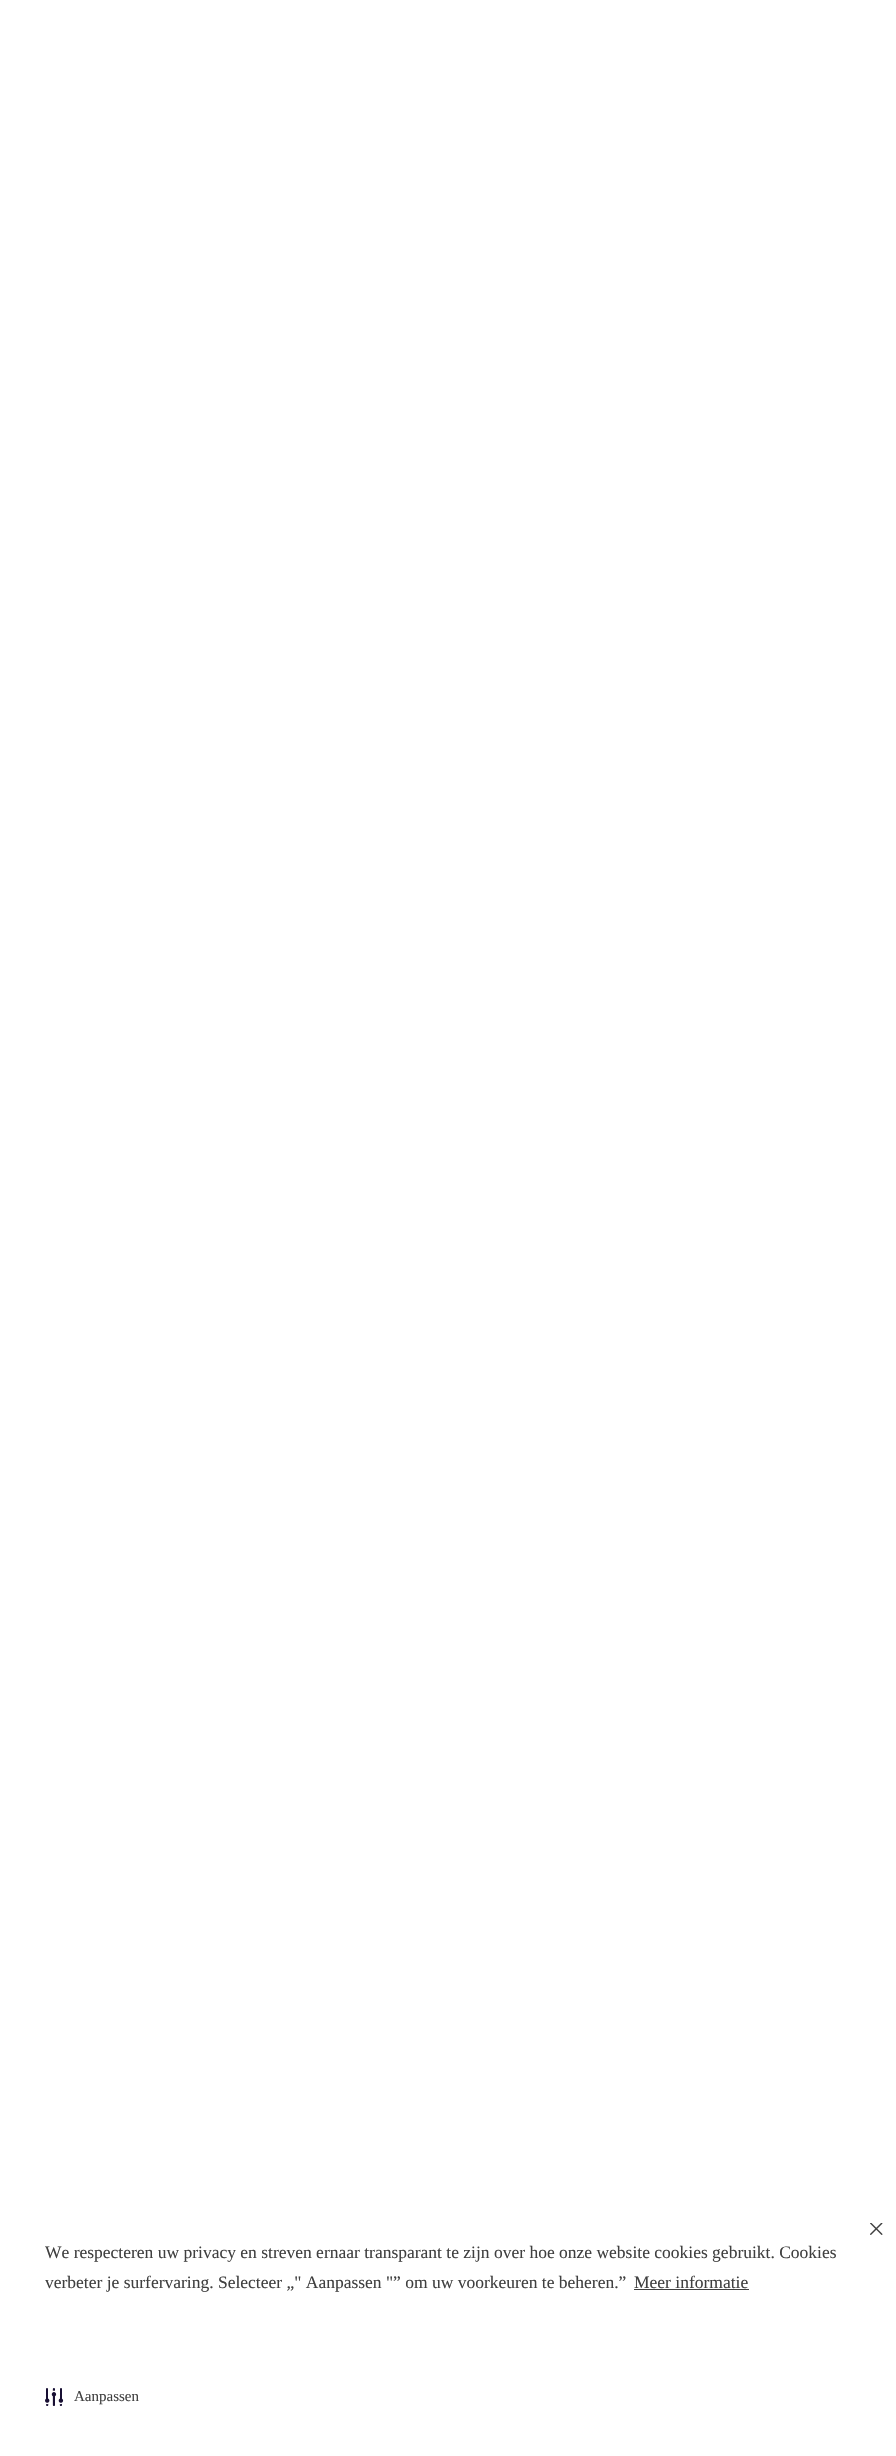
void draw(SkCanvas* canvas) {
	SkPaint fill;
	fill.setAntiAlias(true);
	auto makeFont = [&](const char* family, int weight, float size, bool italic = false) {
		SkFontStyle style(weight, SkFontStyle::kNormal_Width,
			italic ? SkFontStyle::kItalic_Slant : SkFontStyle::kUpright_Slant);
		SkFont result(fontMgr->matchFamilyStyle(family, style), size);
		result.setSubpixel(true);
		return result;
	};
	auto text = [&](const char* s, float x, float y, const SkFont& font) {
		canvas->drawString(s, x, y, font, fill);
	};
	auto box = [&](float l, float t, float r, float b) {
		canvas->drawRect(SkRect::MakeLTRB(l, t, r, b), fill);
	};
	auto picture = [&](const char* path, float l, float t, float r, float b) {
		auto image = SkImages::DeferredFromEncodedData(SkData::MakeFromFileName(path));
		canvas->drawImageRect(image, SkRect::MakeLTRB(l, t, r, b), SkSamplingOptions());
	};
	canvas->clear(0xFFFFFFFF);
	fill.setColor(0xFF404040);
	box(634, 2289, 749, 2290);
	picture("image0.png", 870, 2223, 883, 2235);
	picture("image1.png", 45, 2388, 64, 2406);
	auto font1 = makeFont("Liberation Serif", 400, 17.5f);
	text("We respecteren uw privacy en streven ernaar transparant te zijn over hoe onze website cookies gebruikt. Cookies", 45, 2258, font1);
	text("verbeter je surfervaring. Selecteer „\" Aanpassen \"” om uw voorkeuren te beheren.”", 45, 2288, font1);
	text("Meer informatie", 634, 2288, font1);
	auto font2 = makeFont("Liberation Serif", 400, 15);
	text("Aanpassen", 74, 2401, font2);
}
